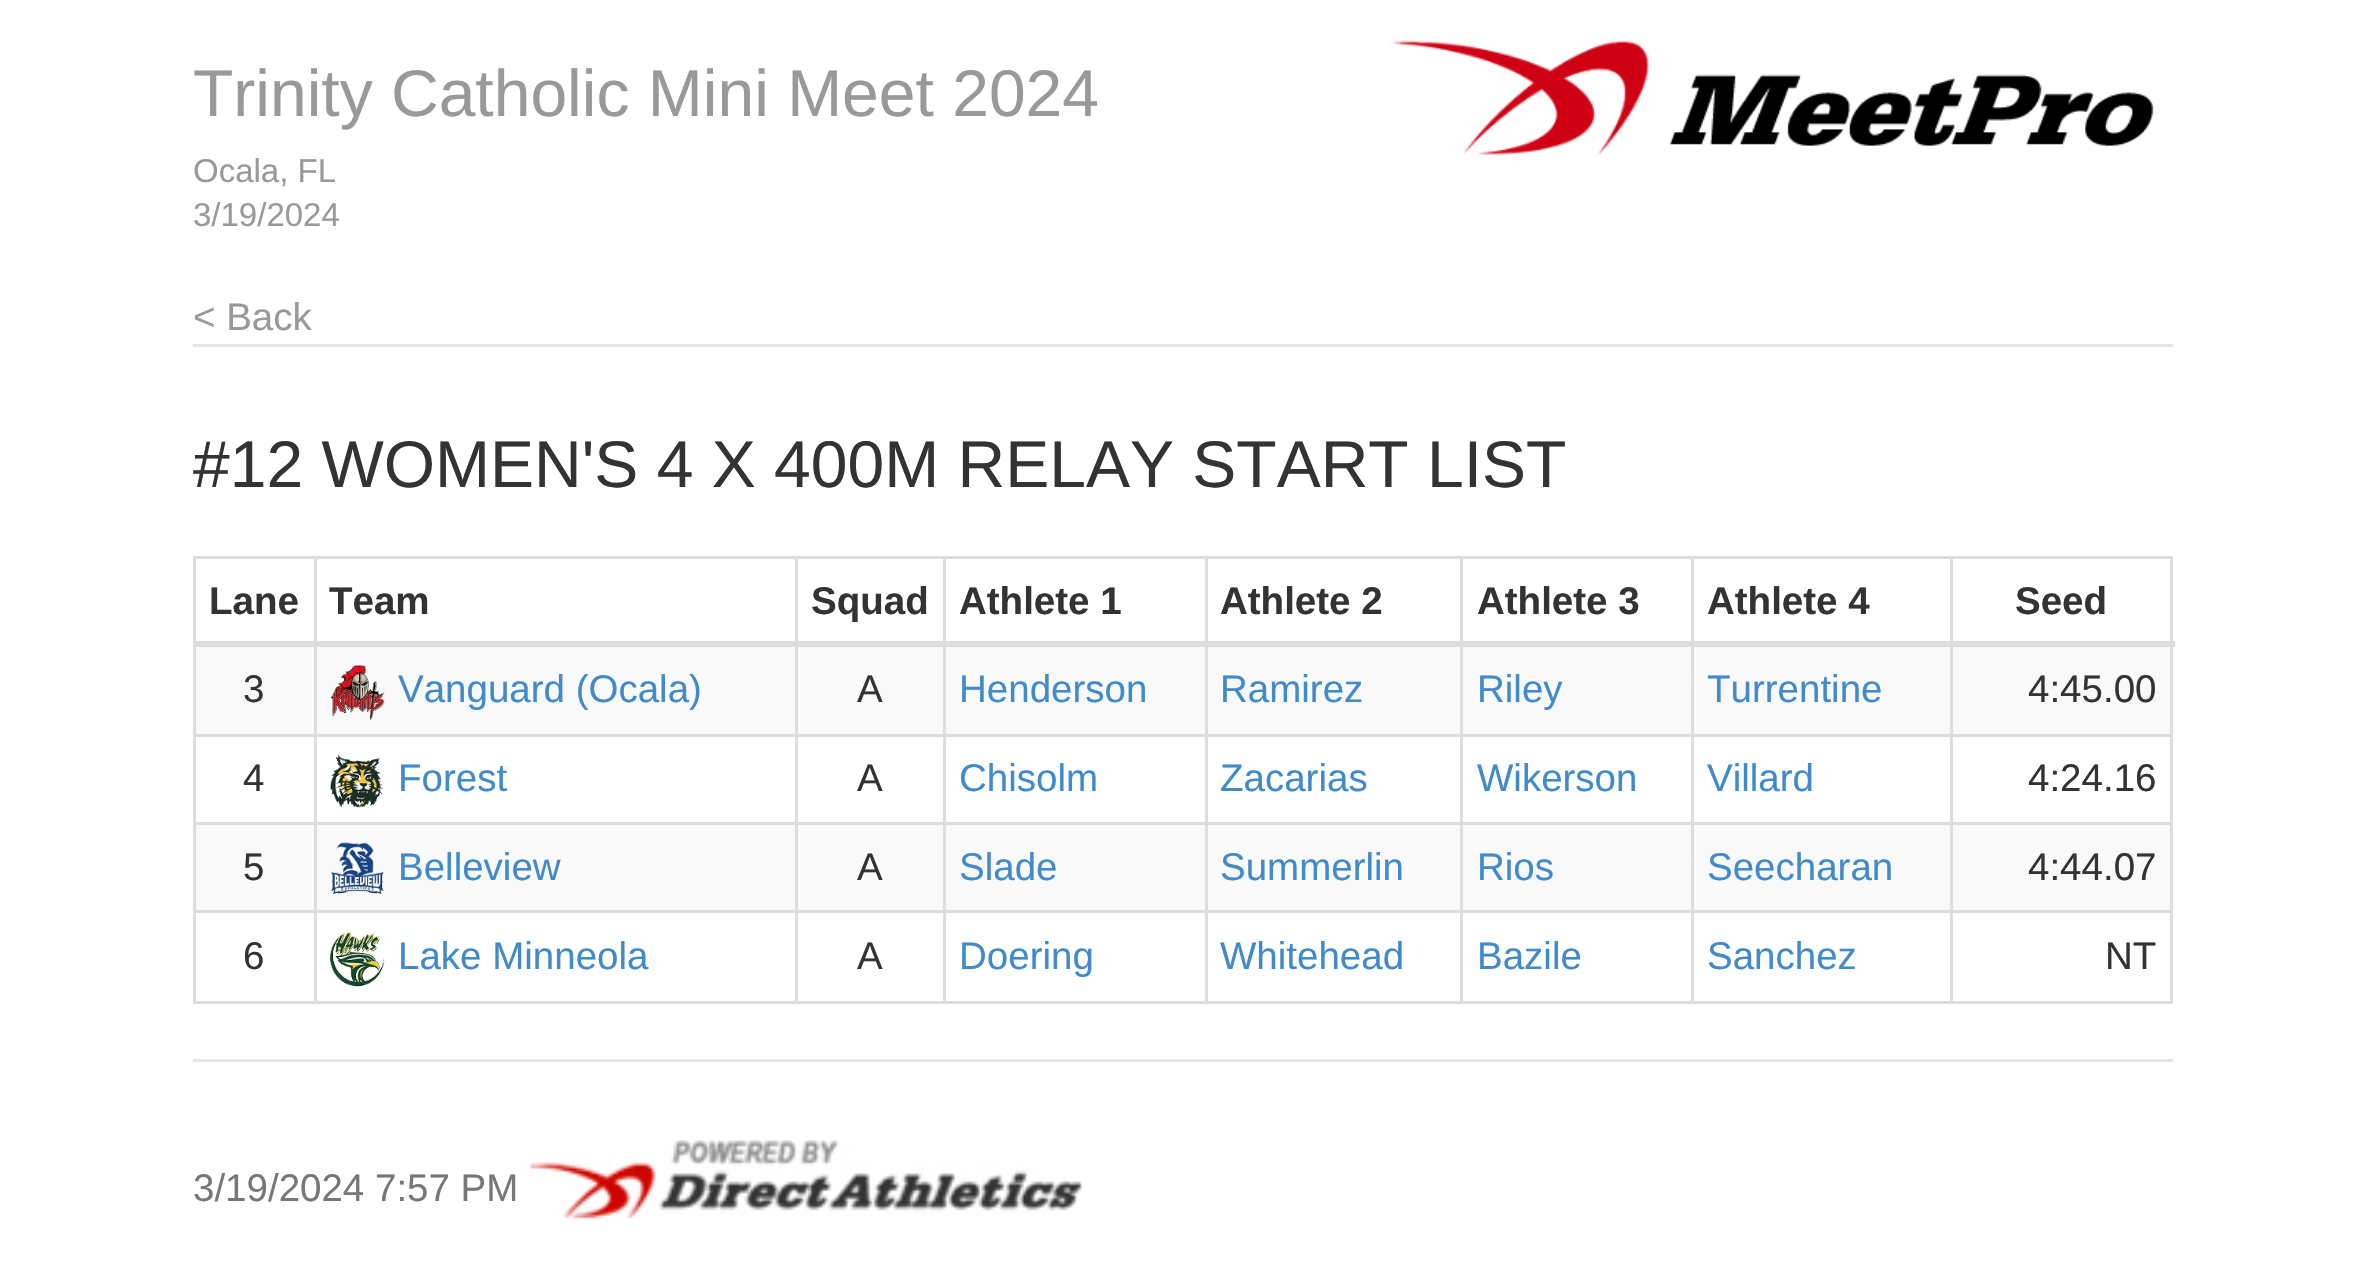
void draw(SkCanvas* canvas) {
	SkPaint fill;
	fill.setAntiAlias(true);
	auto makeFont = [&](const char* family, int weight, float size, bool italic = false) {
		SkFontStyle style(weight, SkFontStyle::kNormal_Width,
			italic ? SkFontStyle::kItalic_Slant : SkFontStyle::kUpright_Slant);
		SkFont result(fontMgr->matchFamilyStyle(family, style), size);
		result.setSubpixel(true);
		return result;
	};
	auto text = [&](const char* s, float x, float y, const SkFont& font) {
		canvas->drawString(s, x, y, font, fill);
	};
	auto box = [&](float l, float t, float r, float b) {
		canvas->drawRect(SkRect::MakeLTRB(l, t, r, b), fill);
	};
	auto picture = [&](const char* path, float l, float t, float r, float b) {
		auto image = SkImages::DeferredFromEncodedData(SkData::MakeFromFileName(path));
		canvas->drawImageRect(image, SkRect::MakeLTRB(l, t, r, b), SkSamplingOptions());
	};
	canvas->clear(0xFFFFFFFF);
	fill.setColor(0xFFE5E5E5);
	box(193, 344, 2173, 347);
	picture("image0.png", 1388, 40, 2154, 156);
	fill.setColor(0xFFDDDDDD);
	box(193, 556, 2173, 559);
	box(2170, 556, 2173, 1004);
	box(193, 1001, 2173, 1004);
	box(193, 556, 196, 1004);
	box(1950, 734, 2173, 737);
	box(1950, 822, 2173, 825);
	box(1950, 910, 2173, 913);
	box(1950, 910, 1953, 1004);
	box(1691, 910, 1953, 913);
	box(1950, 822, 1953, 913);
	box(1691, 822, 1953, 825);
	box(1950, 734, 1953, 825);
	box(1691, 734, 1953, 737);
	box(1691, 910, 1694, 1004);
	box(1460, 910, 1694, 913);
	box(1691, 822, 1694, 913);
	box(1460, 822, 1694, 825);
	box(1691, 734, 1694, 825);
	box(1460, 734, 1694, 737);
	box(1460, 910, 1463, 1004);
	box(1205, 910, 1463, 913);
	box(1460, 822, 1463, 913);
	box(1205, 822, 1463, 825);
	box(1460, 734, 1463, 825);
	box(1205, 734, 1463, 737);
	box(1205, 910, 1208, 1004);
	box(943, 910, 1207, 913);
	box(1205, 822, 1208, 913);
	box(943, 822, 1207, 825);
	box(1205, 734, 1208, 825);
	box(943, 734, 1207, 737);
	box(943, 910, 946, 1004);
	box(795, 910, 946, 913);
	box(943, 822, 946, 913);
	box(795, 822, 946, 825);
	box(943, 734, 946, 825);
	box(795, 734, 946, 737);
	box(795, 910, 798, 1004);
	box(314, 910, 798, 913);
	box(795, 822, 798, 913);
	box(314, 822, 798, 825);
	box(795, 734, 798, 825);
	box(314, 734, 798, 737);
	box(314, 910, 317, 1004);
	box(193, 910, 316, 913);
	box(314, 822, 317, 913);
	box(193, 822, 316, 825);
	box(314, 734, 317, 825);
	box(193, 734, 316, 737);
	box(314, 556, 317, 737);
	box(795, 556, 798, 737);
	box(943, 556, 946, 737);
	box(1205, 556, 1208, 737);
	box(1460, 556, 1463, 737);
	box(1691, 556, 1694, 737);
	box(1950, 556, 1953, 737);
	box(193, 641, 2175, 647);
	fill.setColor(0xFFF9F9F9);
	box(196, 647, 314, 734);
	box(317, 647, 795, 734);
	picture("image1.png", 330, 665, 385, 720);
	box(798, 647, 943, 734);
	box(946, 647, 1205, 734);
	box(1208, 647, 1460, 734);
	box(1463, 647, 1691, 734);
	box(1694, 647, 1950, 734);
	box(1953, 647, 2170, 734);
	picture("image2.png", 330, 754, 384, 808);
	box(196, 825, 314, 910);
	box(317, 825, 795, 910);
	picture("image3.png", 331, 842, 384, 895);
	box(798, 825, 943, 910);
	box(946, 825, 1205, 910);
	box(1208, 825, 1460, 910);
	box(1463, 825, 1691, 910);
	box(1694, 825, 1950, 910);
	box(1953, 825, 2170, 910);
	picture("image4.png", 330, 931, 385, 987);
	fill.setColor(0xFFE5E5E5);
	box(193, 1059, 2173, 1062);
	picture("image5.png", 530, 1140, 1082, 1219);
	auto font1 = makeFont("Liberation Sans", 400, 66);
	fill.setColor(0xFF999999);
	text("Trinity Catholic Mini Meet 2024", 193, 116, font1);
	auto font2 = makeFont("Liberation Sans", 400, 33);
	text("Ocala, FL", 193, 182, font2);
	text("3/19/2024", 193, 226, font2);
	auto font3 = makeFont("Liberation Sans", 400, 38.5f);
	text("< Back", 193, 330, font3);
	fill.setColor(0xFF333333);
	text("#12 WOMEN'S 4 X 400M RELAY START LIST", 193, 487, font1);
	auto font4 = makeFont("Liberation Sans", 700, 38.5f);
	text("Lane", 209, 614, font4);
	text("Team", 329, 614, font4);
	text("Squad", 811, 614, font4);
	text("Athlete 1", 959, 614, font4);
	text("Athlete 2", 1220, 614, font4);
	text("Athlete 3", 1477, 614, font4);
	text("Athlete 4", 1707, 614, font4);
	text("Seed", 2015, 614, font4);
	text("3", 243, 702, font3);
	fill.setColor(0xFF428BCA);
	text("Vanguard (Ocala)", 398, 702, font3);
	fill.setColor(0xFF333333);
	text("A", 857, 702, font3);
	fill.setColor(0xFF428BCA);
	text("Henderson", 959, 702, font3);
	text("Ramirez", 1220, 702, font3);
	text("Riley", 1477, 702, font3);
	text("Turrentine", 1707, 702, font3);
	fill.setColor(0xFF333333);
	text("4:45.00", 2028, 702, font3);
	text("4", 243, 791, font3);
	fill.setColor(0xFF428BCA);
	text("Forest", 398, 791, font3);
	fill.setColor(0xFF333333);
	text("A", 857, 791, font3);
	fill.setColor(0xFF428BCA);
	text("Chisolm", 959, 791, font3);
	text("Zacarias", 1220, 791, font3);
	text("Wikerson", 1477, 791, font3);
	text("Villard", 1707, 791, font3);
	fill.setColor(0xFF333333);
	text("4:24.16", 2028, 791, font3);
	text("5", 243, 880, font3);
	fill.setColor(0xFF428BCA);
	text("Belleview", 398, 880, font3);
	fill.setColor(0xFF333333);
	text("A", 857, 880, font3);
	fill.setColor(0xFF428BCA);
	text("Slade", 959, 880, font3);
	text("Summerlin", 1220, 880, font3);
	text("Rios", 1477, 880, font3);
	text("Seecharan", 1707, 880, font3);
	fill.setColor(0xFF333333);
	text("4:44.07", 2028, 880, font3);
	text("6", 243, 969, font3);
	fill.setColor(0xFF428BCA);
	text("Lake Minneola", 398, 969, font3);
	fill.setColor(0xFF333333);
	text("A", 857, 969, font3);
	fill.setColor(0xFF428BCA);
	text("Doering", 959, 969, font3);
	text("Whitehead", 1220, 969, font3);
	text("Bazile", 1477, 969, font3);
	text("Sanchez", 1707, 969, font3);
	fill.setColor(0xFF333333);
	text("NT", 2105, 969, font3);
	fill.setColor(0xFF777777);
	text("3/19/2024 7:57 PM", 193, 1201, font3);
}
